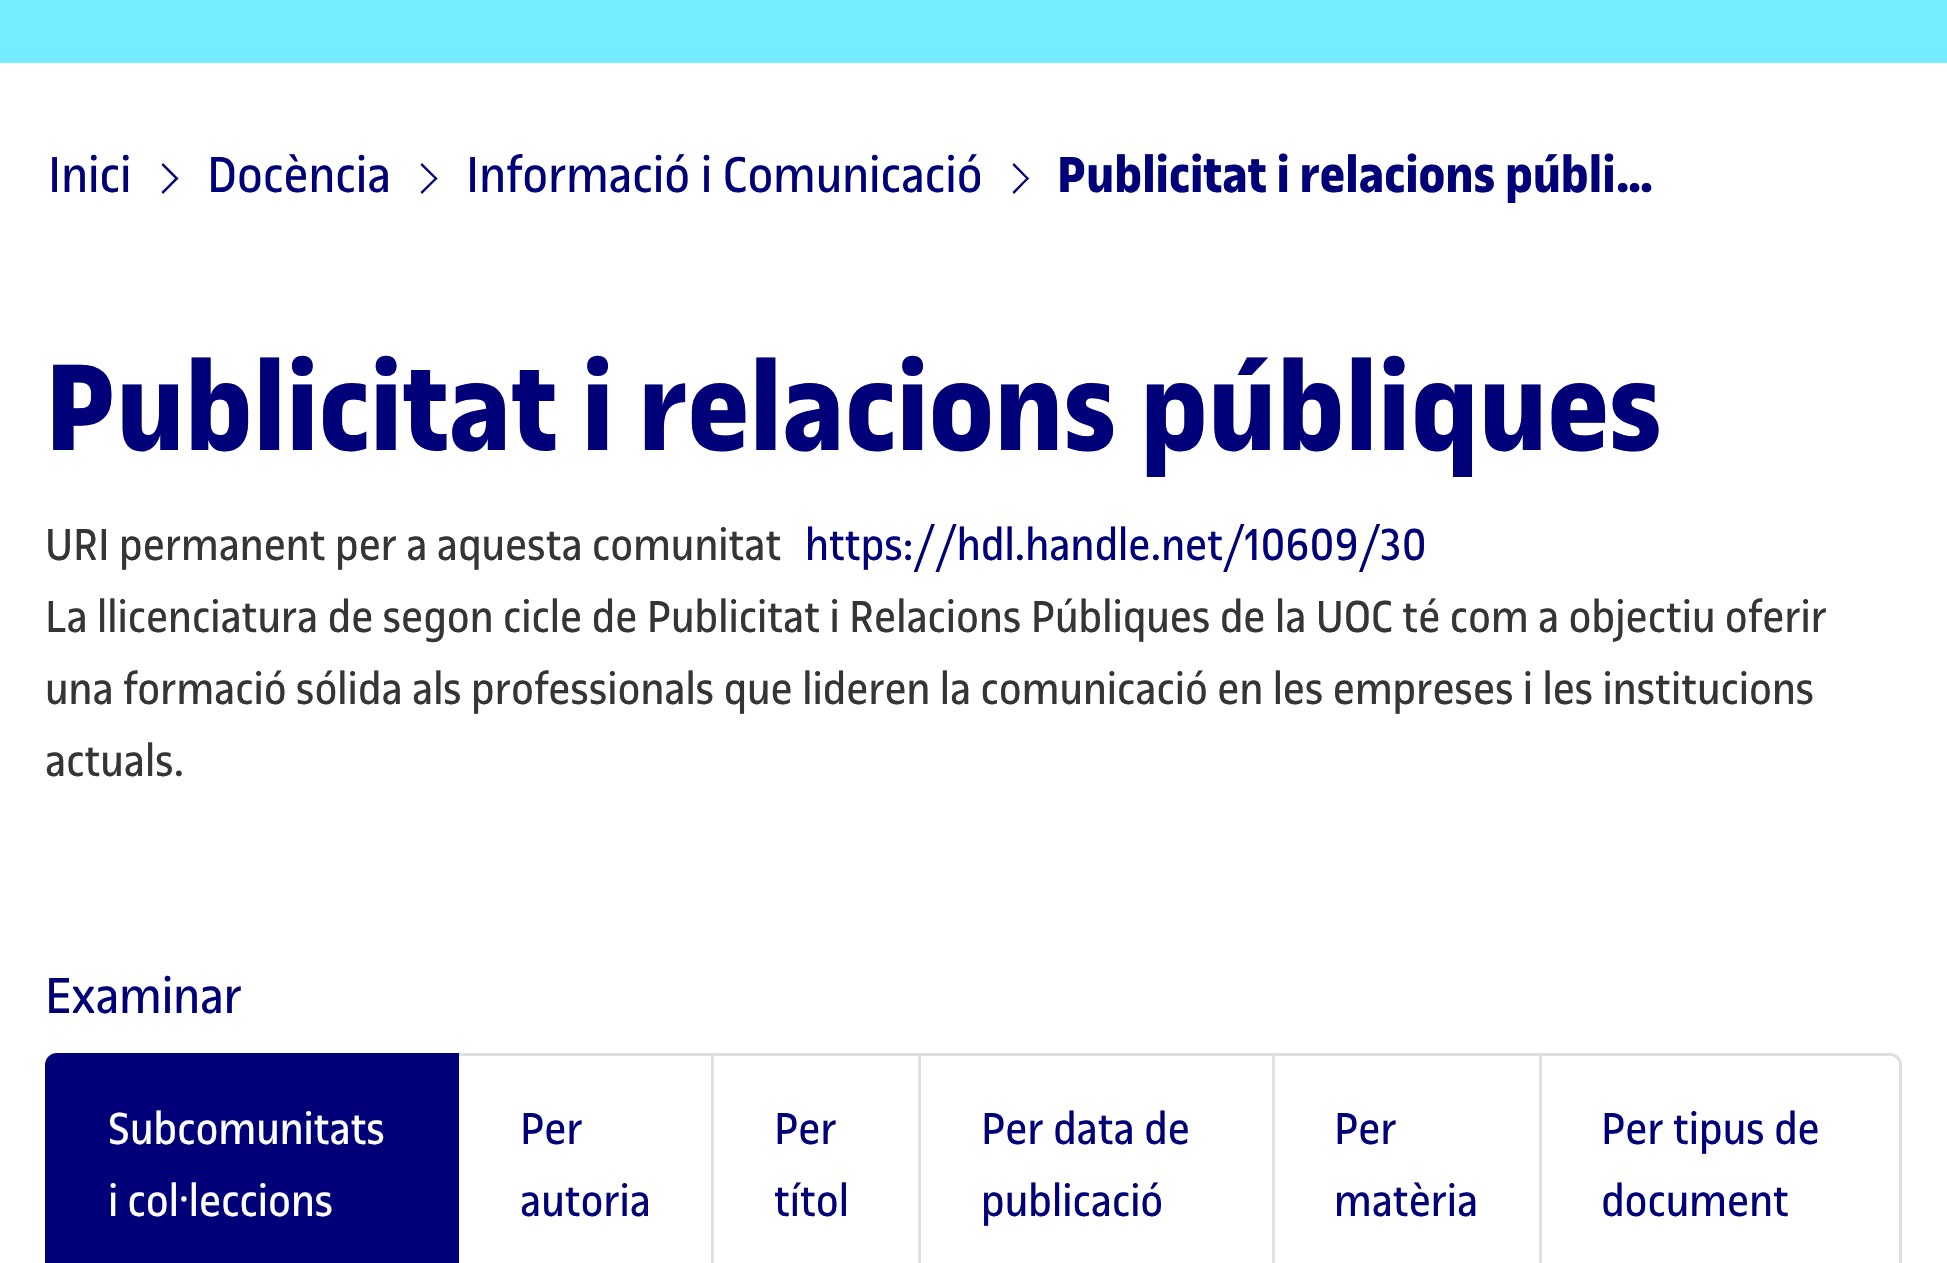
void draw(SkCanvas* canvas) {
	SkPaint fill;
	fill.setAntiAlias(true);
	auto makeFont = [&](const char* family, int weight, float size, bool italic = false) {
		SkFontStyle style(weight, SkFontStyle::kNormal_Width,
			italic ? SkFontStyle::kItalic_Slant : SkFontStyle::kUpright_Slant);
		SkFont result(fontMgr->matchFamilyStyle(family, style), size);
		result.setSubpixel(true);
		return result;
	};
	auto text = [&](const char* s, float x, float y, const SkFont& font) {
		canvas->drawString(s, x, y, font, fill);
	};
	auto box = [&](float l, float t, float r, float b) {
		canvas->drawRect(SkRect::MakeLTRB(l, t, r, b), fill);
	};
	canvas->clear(0xFFFFFFFF);
	fill.setColor(0xFF73EDFF);
	box(0, 0, 1947, 63);
	fill.setColor(0xFF000078);
	canvas->drawPath(SkPathBuilder().moveTo(161.5f, 165).lineTo(163, 163).lineTo(178.5f, 178.5f).lineTo(176.5f, 180).close().detach(), fill);
	canvas->drawPath(SkPathBuilder().moveTo(161.5f, 192).lineTo(176.5f, 177).lineTo(178.5f, 178.5f).lineTo(163, 194).close().detach(), fill);
	canvas->drawPath(SkPathBuilder().moveTo(420.5f, 165).lineTo(422, 163).lineTo(437.5f, 178.5f).lineTo(436, 180).close().detach(), fill);
	canvas->drawPath(SkPathBuilder().moveTo(420.5f, 192).lineTo(436, 177).lineTo(437.5f, 178.5f).lineTo(422, 194).close().detach(), fill);
	canvas->drawPath(SkPathBuilder().moveTo(1012.5f, 165).lineTo(1014, 163).lineTo(1029, 178.5f).lineTo(1027.5f, 180).close().detach(), fill);
	canvas->drawPath(SkPathBuilder().moveTo(1012.5f, 192).lineTo(1027.5f, 177).lineTo(1029, 178.5f).lineTo(1014, 194).close().detach(), fill);
	canvas->drawPath(SkPathBuilder().moveTo(57, 1054.5f).lineTo(457.5f, 1054.5f).lineTo(457.5f, 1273.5f).lineTo(57, 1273.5f).cubicTo(51, 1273.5f, 46.5f, 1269, 46.5f, 1263).lineTo(46.5f, 1065).cubicTo(46.5f, 1059, 51, 1054.5f, 57, 1054.5f).close().detach(), fill);
	fill.setStyle(SkPaint::kStroke_Style);
	fill.setStrokeWidth(3);
	canvas->drawPath(SkPathBuilder().moveTo(57, 1054.5f).lineTo(457.5f, 1054.5f).lineTo(457.5f, 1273.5f).lineTo(57, 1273.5f).cubicTo(51, 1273.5f, 46.5f, 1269, 46.5f, 1263).lineTo(46.5f, 1065).cubicTo(46.5f, 1059, 51, 1054.5f, 57, 1054.5f).close().detach(), fill);
	fill.setStyle(SkPaint::kFill_Style);
	fill.setColor(0xFFDFDFDF);
	canvas->drawPath(SkPathBuilder().moveTo(459, 1053).lineTo(714, 1053).lineTo(711, 1056).lineTo(459, 1056).close().detach(), fill);
	fill.setColor(0x1F000000);
	canvas->drawPath(SkPathBuilder().moveTo(714, 1053).lineTo(714, 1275).lineTo(711, 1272).lineTo(711, 1056).close().detach(), fill);
	fill.setColor(0xFFDFDFDF);
	canvas->drawPath(SkPathBuilder().moveTo(714, 1053).lineTo(921, 1053).lineTo(918, 1056).lineTo(714, 1056).close().detach(), fill);
	fill.setColor(0x1F000000);
	canvas->drawPath(SkPathBuilder().moveTo(921, 1053).lineTo(921, 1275).lineTo(918, 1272).lineTo(918, 1056).close().detach(), fill);
	fill.setColor(0xFFDFDFDF);
	canvas->drawPath(SkPathBuilder().moveTo(921, 1053).lineTo(1275, 1053).lineTo(1272, 1056).lineTo(921, 1056).close().detach(), fill);
	fill.setColor(0x1F000000);
	canvas->drawPath(SkPathBuilder().moveTo(1275, 1053).lineTo(1275, 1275).lineTo(1272, 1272).lineTo(1272, 1056).close().detach(), fill);
	fill.setColor(0xFFDFDFDF);
	canvas->drawPath(SkPathBuilder().moveTo(1275, 1053).lineTo(1542, 1053).lineTo(1539, 1056).lineTo(1275, 1056).close().detach(), fill);
	fill.setColor(0x1F000000);
	canvas->drawPath(SkPathBuilder().moveTo(1542, 1053).lineTo(1542, 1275).lineTo(1539, 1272).lineTo(1539, 1056).close().detach(), fill);
	fill.setColor(0xFFDFDFDF);
	canvas->drawPath(SkPathBuilder(SkPathFillType::kEvenOdd).moveTo(1542, 1053).lineTo(1890, 1053).cubicTo(1897, 1053, 1902, 1058, 1902, 1065).lineTo(1902, 1263).cubicTo(1902, 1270, 1897, 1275, 1890, 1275).lineTo(1542, 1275).close().moveTo(1542, 1056).lineTo(1890, 1056).cubicTo(1895, 1056, 1899, 1060, 1899, 1065).lineTo(1899, 1263).cubicTo(1899, 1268, 1895, 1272, 1890, 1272).lineTo(1542, 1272).close().detach(), fill);
	auto font1 = makeFont("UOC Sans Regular", 400, 54);
	fill.setColor(0xFF000078);
	text("Inici", 48, 192, font1);
	text("Docència", 207, 192, font1);
	text("Informació i Comunicació", 466, 192, font1);
	auto font2 = makeFont("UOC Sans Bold", 700, 54);
	text("Publicitat i relacions públi…", 1057, 192, font2);
	auto font3 = makeFont("UOC Sans Bold", 700, 132);
	text("Publicitat i relacions públiques", 45, 450, font3);
	auto font4 = makeFont("UOC Sans Regular", 400, 48);
	fill.setColor(0xFF353535);
	text("URI permanent per a aquesta comunitat", 45, 560, font4);
	fill.setColor(0xFF000078);
	text("https://hdl.handle.net/10609/30", 805, 560, font4);
	fill.setColor(0xFF353535);
	text("La llicenciatura de segon cicle de Publicitat i Relacions Públiques de la UOC té com a objectiu oferir", 45, 632, font4);
	text("una formació sólida als professionals que lideren la comunicació en les empreses i les institucions", 45, 704, font4);
	text("actuals.", 45, 776, font4);
	fill.setColor(0xFF000078);
	text("Examinar", 45, 1013, font1);
	fill.setColor(0xFFFFFFFF);
	text("Subcomunitats", 108, 1144, font4);
	text("i col·leccions", 108, 1216, font4);
	fill.setColor(0xFF000078);
	text("Per", 520, 1144, font4);
	text("autoria", 520, 1216, font4);
	text("Per", 774, 1144, font4);
	text("títol", 774, 1216, font4);
	text("Per data de", 981, 1144, font4);
	text("publicació", 981, 1216, font4);
	text("Per", 1334, 1144, font4);
	text("matèria", 1334, 1216, font4);
	text("Per tipus de", 1601, 1144, font4);
	text("document", 1601, 1216, font4);
}
